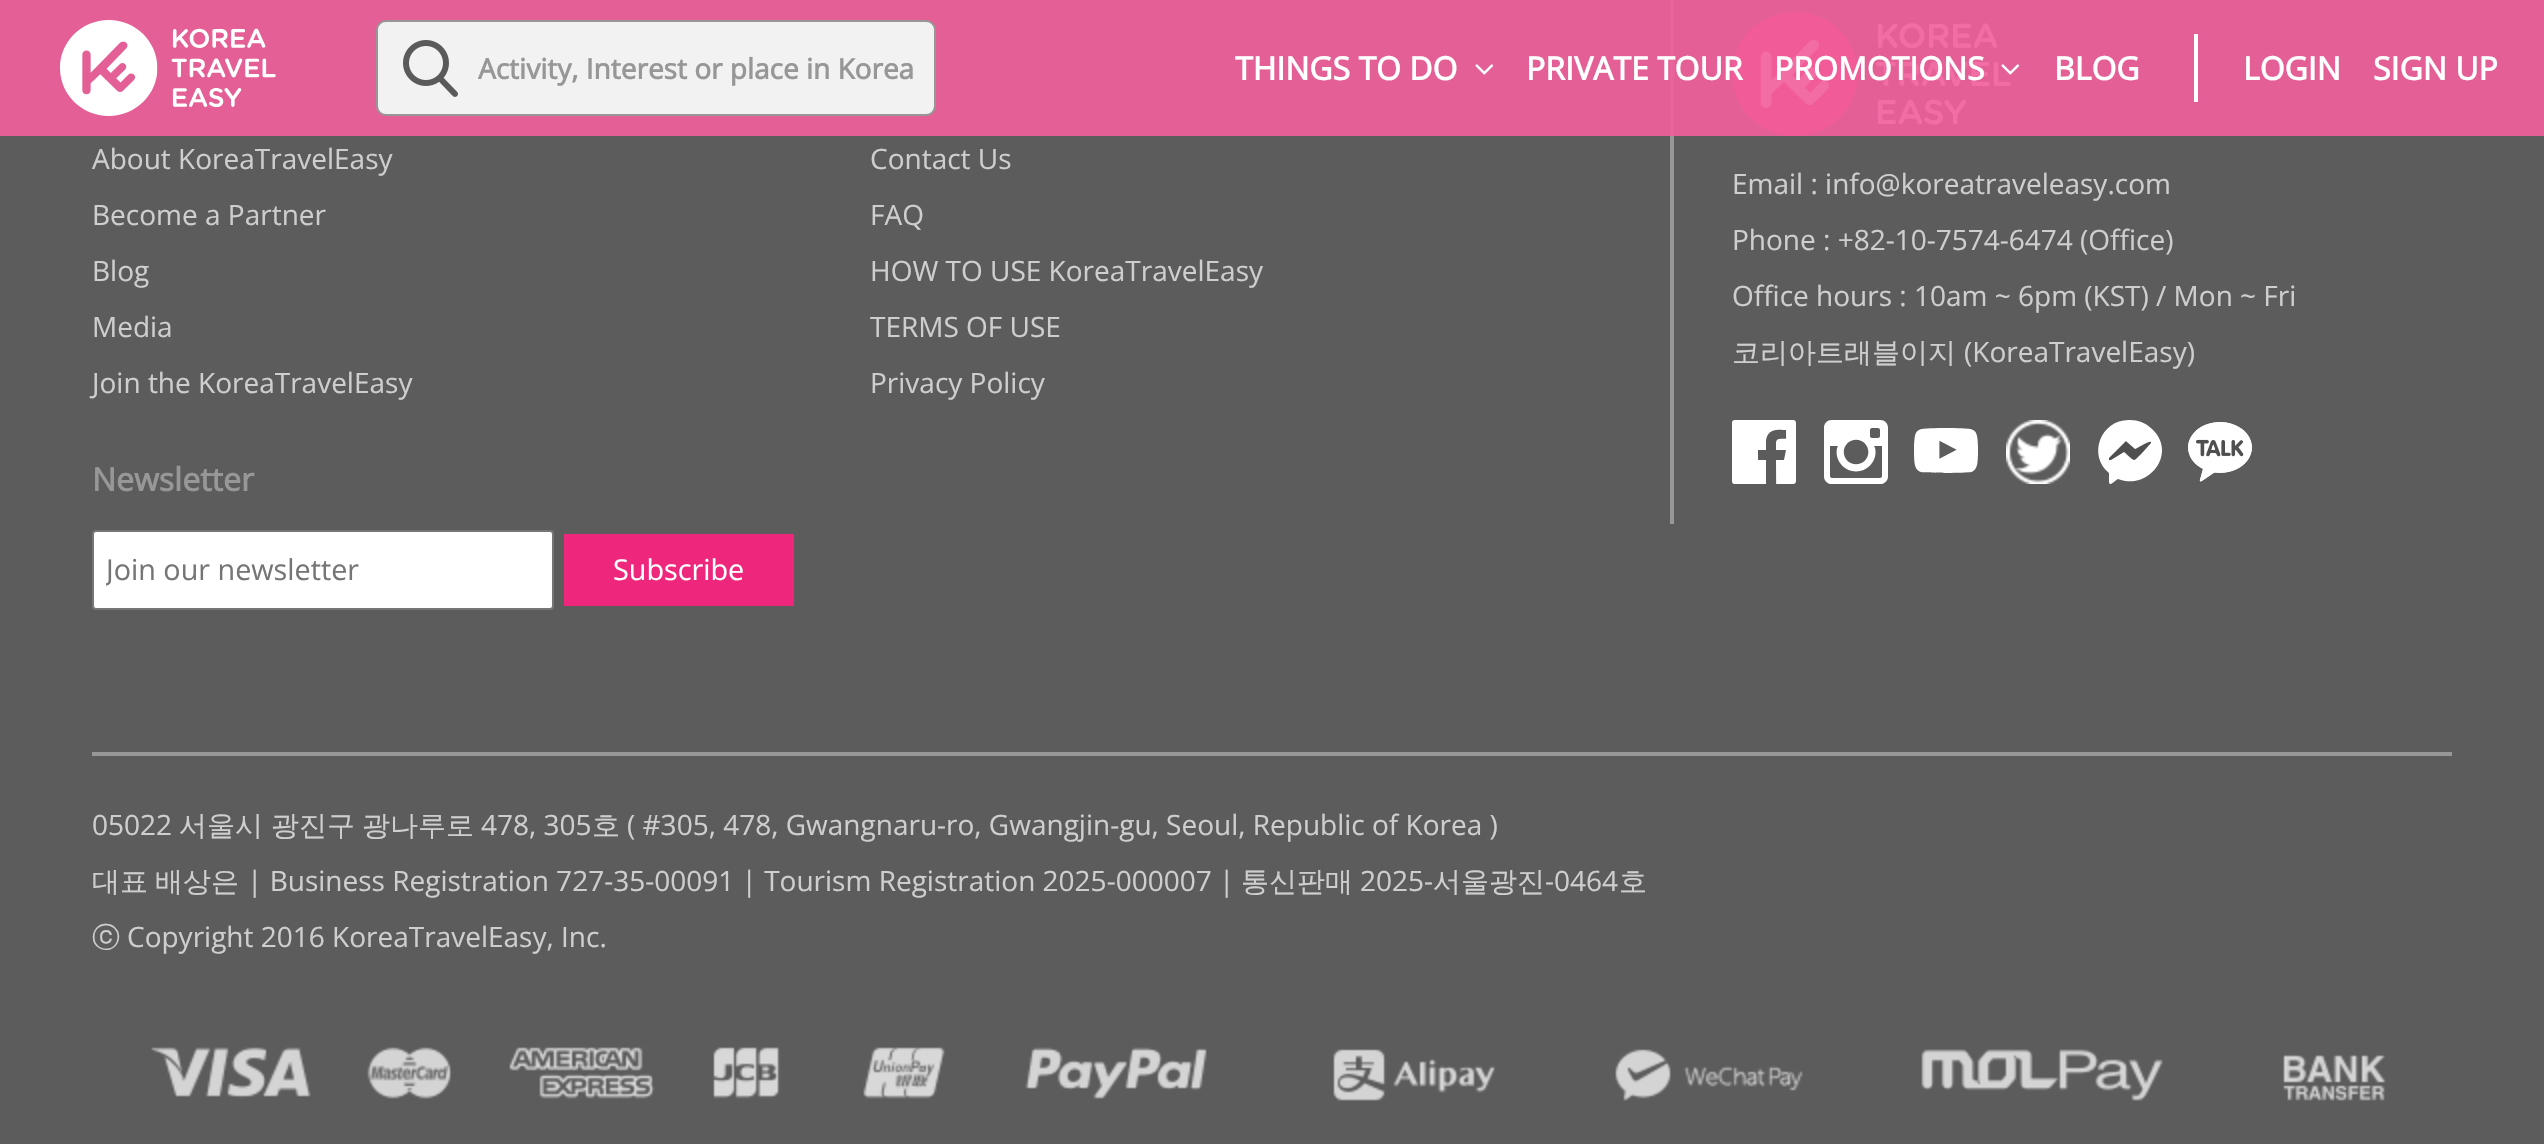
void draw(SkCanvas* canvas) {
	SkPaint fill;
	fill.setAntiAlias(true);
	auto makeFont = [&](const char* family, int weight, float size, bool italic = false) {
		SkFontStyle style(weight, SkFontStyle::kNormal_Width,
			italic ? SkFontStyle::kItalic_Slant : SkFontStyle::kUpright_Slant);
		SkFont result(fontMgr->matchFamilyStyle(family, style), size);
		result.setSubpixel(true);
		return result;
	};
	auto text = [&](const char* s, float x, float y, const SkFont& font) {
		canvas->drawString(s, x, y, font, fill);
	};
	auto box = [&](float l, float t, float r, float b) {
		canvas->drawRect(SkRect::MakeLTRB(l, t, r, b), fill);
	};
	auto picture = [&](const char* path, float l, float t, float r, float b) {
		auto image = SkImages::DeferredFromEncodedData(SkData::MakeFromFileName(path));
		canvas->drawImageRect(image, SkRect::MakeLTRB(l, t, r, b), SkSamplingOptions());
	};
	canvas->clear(0xFF5C5C5C);
	fill.setColor(0xFFE45F95);
	box(0, 0, 2544, 136);
	picture("image0.png", 60, 20, 276, 116);
	fill.setColor(0xFFF2F2F2);
	canvas->drawRoundRect(SkRect::MakeLTRB(377, 21, 935, 115), 9, 9, fill);
	fill.setStyle(SkPaint::kStroke_Style);
	fill.setStrokeWidth(2);
	fill.setColor(0xFF979797);
	canvas->drawRoundRect(SkRect::MakeLTRB(377, 21, 935, 115), 9, 9, fill);
	picture("image1.png", 403, 40, 458, 97);
	picture("image2.png", 1475, 64, 1494, 75);
	picture("image3.png", 1732, 12, 2011, 136);
	picture("image2.png", 2001, 64, 2020, 75);
	fill.setStyle(SkPaint::kFill_Style);
	fill.setColor(0xFFFFFFFF);
	box(2194, 34, 2198, 102);
	fill.setColor(0xFF979797);
	box(92, 752, 2452, 756);
	fill.setColor(0xFFFFFFFF);
	canvas->drawRoundRect(SkRect::MakeLTRB(93, 531, 553, 609), 3, 3, fill);
	fill.setStyle(SkPaint::kStroke_Style);
	fill.setColor(0xFF767676);
	canvas->drawRoundRect(SkRect::MakeLTRB(93, 531, 553, 609), 3, 3, fill);
	fill.setStyle(SkPaint::kFill_Style);
	fill.setColor(0xFFEE267C);
	box(564, 534, 794, 606);
	fill.setColor(0xFF979797);
	box(1670, 136, 1674, 524);
	fill.setColor(0xFFE9649A);
	box(1670, 0, 1674, 136);
	picture("image4.png", 1732, 420, 1796, 484);
	picture("image5.png", 1824, 420, 1888, 484);
	picture("image6.png", 1914, 428, 1978, 473);
	picture("image7.png", 2006, 420, 2070, 484);
	fill.setColor(0xFFFFFFFF);
	canvas->drawPath(SkPathBuilder().moveTo(2130, 420).cubicTo(2101, 419, 2087, 455, 2109, 473).cubicTo(2109, 487, 2108, 486, 2118, 479).cubicTo(2149, 491, 2178, 453, 2152, 429).cubicTo(2146, 423, 2138, 420, 2130, 420).close().detach(), fill);
	picture("image8.png", 2188, 422, 2252, 482);
	fill.setColor(0xFF4F4F4F);
	canvas->drawPath(SkPathBuilder().moveTo(2151, 442).cubicTo(2150, 440, 2138, 448, 2135, 449).lineTo(2127, 442).cubicTo(2126, 441, 2125, 441, 2125, 442).lineTo(2109, 458).cubicTo(2109, 458, 2109, 459, 2109, 460).cubicTo(2109, 460, 2110, 460, 2111, 460).lineTo(2124, 452).cubicTo(2136, 462, 2132, 463, 2143, 452).lineTo(2151, 443).close().detach(), fill);
	picture("image9.png", 151, 1047, 1207, 1099);
	picture("image10.png", 1333, 1049, 2386, 1101);
	auto font1 = makeFont("Open Sans", 700, 28);
	fill.setColor(0xFF979797);
	text("Activity, Interest or place in Korea", 478, 79, font1);
	auto font2 = makeFont("Open Sans", 700, 32);
	fill.setColor(0xFFFFFFFF);
	text("THINGS TO DO", 1235, 80, font2);
	text("PRIVATE TOUR", 1526, 80, font2);
	text("PROMOTIONS", 1774, 80, font2);
	text("BLOG", 2054, 80, font2);
	text("LOGIN", 2243, 80, font2);
	text("SIGN UP", 2373, 80, font2);
	auto font3 = makeFont("Open Sans", 400, 28);
	fill.setColor(0xFFCECECE);
	text("About KoreaTravelEasy", 92, 169, font3);
	text("Become a Partner", 92, 225, font3);
	text("Blog", 92, 281, font3);
	text("Media", 92, 337, font3);
	text("Join the KoreaTravelEasy", 92, 393, font3);
	fill.setColor(0xFF979797);
	text("Newsletter", 92, 491, font2);
	canvas->save();
	canvas->clipRect(SkRect::MakeLTRB(106, 550, 540, 588));
	auto font4 = makeFont("Open Sans", 400, 28.75f);
	fill.setColor(0xFF757575);
	text("Join our newsletter", 106, 580, font4);
	canvas->restore();
	fill.setColor(0xFFFFFFFF);
	text("Subscribe", 613, 580, font4);
	fill.setColor(0xFFCECECE);
	text("Contact Us", 870, 169, font3);
	text("FAQ", 870, 225, font3);
	text("HOW TO USE KoreaTravelEasy", 870, 281, font3);
	text("TERMS OF USE", 870, 337, font3);
	text("Privacy Policy", 870, 393, font3);
	text("Email : info@koreatraveleasy.com", 1732, 194, font3);
	text("Phone : +82-10-7574-6474 (Office)", 1732, 250, font3);
	text("Office hours : 10am ~ 6pm (KST) / Mon ~ Fri", 1732, 306, font3);
	auto font5 = makeFont("WenQuanYi Zen Hei", 500, 28);
	text("코리아트래블이지", 1732, 362, font5);
	text("(KoreaTravelEasy)", 1964, 362, font3);
	text("05022", 92, 835, font3);
	text("서울시", 179, 835, font5);
	text("광진구", 271, 835, font5);
	text("광나루로", 362, 835, font5);
	text("478, 305", 481, 835, font3);
	text("호", 592, 835, font5);
	text("( #305, 478, Gwangnaru-ro, Gwangjin-gu, Seoul, Republic of Korea )", 627, 835, font3);
	text("대표", 92, 891, font5);
	text("배상은", 155, 891, font5);
	text("| Business Registration 727-35-00091 | Tourism Registration 2025-000007 |", 247, 891, font3);
	text("통신판매", 1241, 891, font5);
	text("2025-", 1360, 891, font3);
	text("서울광진", 1433, 891, font5);
	text("-0464", 1545, 891, font3);
	text("호", 1619, 891, font5);
	text("ⓒ", 92, 947, font5);
	text("Copyright 2016 KoreaTravelEasy, Inc.", 127, 947, font3);
}
